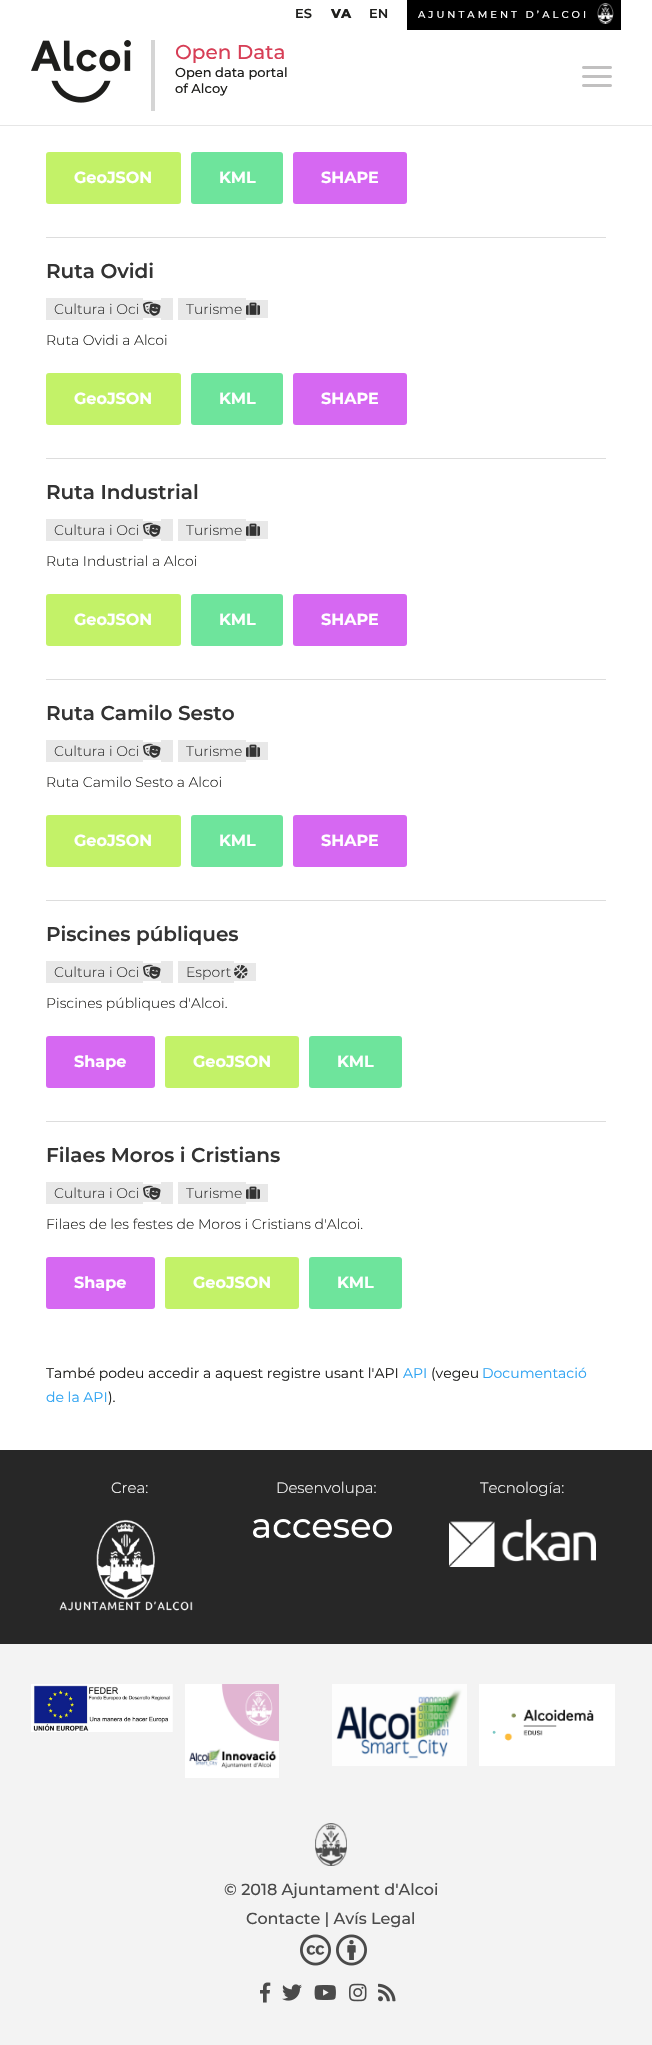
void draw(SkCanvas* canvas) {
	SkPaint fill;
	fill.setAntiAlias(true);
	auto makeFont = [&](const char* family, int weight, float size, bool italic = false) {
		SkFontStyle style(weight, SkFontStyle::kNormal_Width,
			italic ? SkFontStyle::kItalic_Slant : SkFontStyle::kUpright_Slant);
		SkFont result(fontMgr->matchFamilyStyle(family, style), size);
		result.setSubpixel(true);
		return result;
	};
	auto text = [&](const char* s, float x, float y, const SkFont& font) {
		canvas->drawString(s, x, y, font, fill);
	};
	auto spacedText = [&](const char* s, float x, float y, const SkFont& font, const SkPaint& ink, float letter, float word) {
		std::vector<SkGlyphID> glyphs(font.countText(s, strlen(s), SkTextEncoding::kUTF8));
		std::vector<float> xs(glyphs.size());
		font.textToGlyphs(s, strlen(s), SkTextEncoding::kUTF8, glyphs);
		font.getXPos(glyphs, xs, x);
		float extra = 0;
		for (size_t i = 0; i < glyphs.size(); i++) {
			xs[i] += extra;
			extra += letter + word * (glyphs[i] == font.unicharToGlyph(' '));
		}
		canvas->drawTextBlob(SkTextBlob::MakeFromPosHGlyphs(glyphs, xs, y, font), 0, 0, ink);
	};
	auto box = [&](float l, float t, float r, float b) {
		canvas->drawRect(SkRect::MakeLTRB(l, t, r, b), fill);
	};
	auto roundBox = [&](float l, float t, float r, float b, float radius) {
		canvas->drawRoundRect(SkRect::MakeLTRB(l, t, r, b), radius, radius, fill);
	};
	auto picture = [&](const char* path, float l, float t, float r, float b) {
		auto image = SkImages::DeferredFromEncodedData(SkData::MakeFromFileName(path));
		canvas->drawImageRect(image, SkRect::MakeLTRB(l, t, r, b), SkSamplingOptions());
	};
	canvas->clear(0xFFFFFFFF);
	fill.setColor(0xFF000000);
	box(407, 0, 621, 30);
	picture("image0.png", 597, 3, 614, 24);
	fill.setColor(0xFFE6E6E6);
	box(0, 125, 652, 126);
	picture("image1.png", 31, 40, 131, 103);
	fill.setColor(0xFFD5D5D5);
	box(151, 40, 155, 111);
	picture("image2.png", 582, 66, 612, 87);
	fill.setColor(0xFFDDDDDD);
	box(46, 237, 606, 238);
	fill.setColor(0xFFC3F268);
	roundBox(46, 152, 181, 204, 3);
	fill.setColor(0xFF6EE49C);
	roundBox(191, 152, 283, 204, 3);
	fill.setColor(0xFFD668F2);
	roundBox(293, 152, 407, 204, 3);
	fill.setColor(0xFFDDDDDD);
	box(46, 458, 606, 459);
	fill.setColor(0xFFE8E8E8);
	box(46, 298, 143, 320);
	box(143, 300, 161, 318);
	box(161, 298, 173, 320);
	picture("image3.png", 143, 301, 161, 316);
	box(178, 298, 246, 320);
	box(246, 300, 268, 318);
	picture("image4.png", 246, 302, 260, 315);
	fill.setColor(0xFFC3F268);
	roundBox(46, 373, 181, 425, 3);
	fill.setColor(0xFF6EE49C);
	roundBox(191, 373, 283, 425, 3);
	fill.setColor(0xFFD668F2);
	roundBox(293, 373, 407, 425, 3);
	fill.setColor(0xFFDDDDDD);
	box(46, 679, 606, 680);
	fill.setColor(0xFFE8E8E8);
	box(46, 519, 143, 541);
	box(143, 521, 161, 539);
	box(161, 519, 173, 541);
	picture("image3.png", 143, 522, 161, 537);
	box(178, 519, 246, 541);
	box(246, 521, 268, 539);
	picture("image4.png", 246, 523, 260, 536);
	fill.setColor(0xFFC3F268);
	roundBox(46, 594, 181, 646, 3);
	fill.setColor(0xFF6EE49C);
	roundBox(191, 594, 283, 646, 3);
	fill.setColor(0xFFD668F2);
	roundBox(293, 594, 407, 646, 3);
	fill.setColor(0xFFDDDDDD);
	box(46, 900, 606, 901);
	fill.setColor(0xFFE8E8E8);
	box(46, 740, 143, 762);
	box(143, 742, 161, 760);
	box(161, 740, 173, 762);
	picture("image3.png", 143, 743, 161, 758);
	box(178, 740, 246, 762);
	box(246, 742, 268, 760);
	picture("image4.png", 246, 744, 260, 757);
	fill.setColor(0xFFC3F268);
	roundBox(46, 815, 181, 867, 3);
	fill.setColor(0xFF6EE49C);
	roundBox(191, 815, 283, 867, 3);
	fill.setColor(0xFFD668F2);
	roundBox(293, 815, 407, 867, 3);
	fill.setColor(0xFFDDDDDD);
	box(46, 1121, 606, 1122);
	fill.setColor(0xFFE8E8E8);
	box(46, 961, 143, 983);
	box(143, 963, 161, 981);
	box(161, 961, 173, 983);
	picture("image3.png", 143, 964, 161, 979);
	box(178, 961, 234, 983);
	box(234, 963, 256, 981);
	picture("image5.png", 234, 965, 248, 979);
	fill.setColor(0xFFD668F2);
	roundBox(46, 1036, 155, 1088, 3);
	fill.setColor(0xFFC3F268);
	roundBox(165, 1036, 299, 1088, 3);
	fill.setColor(0xFF6EE49C);
	roundBox(309, 1036, 402, 1088, 3);
	fill.setColor(0xFFE8E8E8);
	box(46, 1182, 143, 1204);
	box(143, 1184, 161, 1202);
	box(161, 1182, 173, 1204);
	picture("image3.png", 143, 1185, 161, 1200);
	box(178, 1182, 246, 1204);
	box(246, 1184, 268, 1202);
	picture("image4.png", 246, 1186, 260, 1199);
	fill.setColor(0xFFD668F2);
	roundBox(46, 1257, 155, 1309, 3);
	fill.setColor(0xFFC3F268);
	roundBox(165, 1257, 299, 1309, 3);
	fill.setColor(0xFF6EE49C);
	roundBox(309, 1257, 402, 1309, 3);
	fill.setColor(0xFFF3F3F3);
	box(0, 1644, 652, 2045);
	fill.setColor(0xFF272727);
	box(0, 1450, 652, 1644);
	picture("image6.png", 59, 1519, 193, 1611);
	picture("image7.png", 253, 1519, 392, 1538);
	picture("image8.png", 449, 1519, 596, 1567);
	picture("image9.png", 31, 1684, 173, 1732);
	picture("image10.png", 185, 1684, 279, 1778);
	picture("image11.png", 332, 1684, 467, 1766);
	picture("image12.png", 479, 1684, 615, 1766);
	picture("image13.png", 315, 1823, 347, 1866);
	picture("image14.png", 300, 1934, 331, 1966);
	picture("image15.png", 336, 1934, 367, 1966);
	picture("image16.png", 260, 1982, 271, 2003);
	picture("image17.png", 282, 1984, 302, 2001);
	picture("image18.png", 314, 1985, 336, 2000);
	picture("image19.png", 349, 1983, 367, 2002);
	picture("image20.png", 378, 1983, 396, 2002);
	auto font1 = makeFont("Montserrat", 600, 13);
	fill.setColor(0xFF1E1E1C);
	text("ES", 295, 18, font1);
	auto font2 = makeFont("Montserrat", 800, 13);
	text("VA", 331, 18, font2);
	text("EN", 369, 18, font1);
	auto font3 = makeFont("Montserrat", 500, 10);
	fill.setColor(0xFFFFFFFF);
	spacedText("AJUNTAMENT D’ALCOI", 418, 18, font3, fill, 3, 0);
	auto font4 = makeFont("Montserrat", 500, 20);
	fill.setColor(0xFFD73E56);
	text("Open Data", 175, 59, font4);
	auto font5 = makeFont("Montserrat", 500, 13);
	fill.setColor(0xFF1E1E1C);
	text("Open data portal", 175, 77, font5);
	text("of Alcoy", 175, 93, font5);
	auto font6 = makeFont("Montserrat", 700, 16);
	fill.setColor(0xFFFFFFFF);
	text("GeoJSON", 74, 183, font6);
	text("KML", 219, 183, font6);
	text("SHAPE", 321, 183, font6);
	auto font7 = makeFont("Montserrat", 600, 20);
	fill.setColor(0xFF333333);
	text("Ruta Ovidi", 46, 278, font7);
	auto font8 = makeFont("Montserrat", 300, 14);
	text("Cultura i Oci", 54, 314, font8);
	text("Turisme", 186, 314, font8);
	fill.setColor(0xFF1E1E1C);
	text("Ruta Ovidi a Alcoi", 46, 345, font8);
	fill.setColor(0xFFFFFFFF);
	text("GeoJSON", 74, 404, font6);
	text("KML", 219, 404, font6);
	text("SHAPE", 321, 404, font6);
	fill.setColor(0xFF333333);
	text("Ruta Industrial", 46, 499, font7);
	text("Cultura i Oci", 54, 535, font8);
	text("Turisme", 186, 535, font8);
	fill.setColor(0xFF1E1E1C);
	text("Ruta Industrial a Alcoi", 46, 566, font8);
	fill.setColor(0xFFFFFFFF);
	text("GeoJSON", 74, 625, font6);
	text("KML", 219, 625, font6);
	text("SHAPE", 321, 625, font6);
	fill.setColor(0xFF333333);
	text("Ruta Camilo Sesto", 46, 720, font7);
	text("Cultura i Oci", 54, 756, font8);
	text("Turisme", 186, 756, font8);
	fill.setColor(0xFF1E1E1C);
	text("Ruta Camilo Sesto a Alcoi", 46, 787, font8);
	fill.setColor(0xFFFFFFFF);
	text("GeoJSON", 74, 846, font6);
	text("KML", 219, 846, font6);
	text("SHAPE", 321, 846, font6);
	fill.setColor(0xFF333333);
	text("Piscines públiques", 46, 941, font7);
	text("Cultura i Oci", 54, 977, font8);
	text("Esport", 186, 977, font8);
	fill.setColor(0xFF1E1E1C);
	text("Piscines públiques d'Alcoi.", 46, 1008, font8);
	fill.setColor(0xFFFFFFFF);
	text("Shape", 74, 1067, font6);
	text("GeoJSON", 193, 1067, font6);
	text("KML", 337, 1067, font6);
	fill.setColor(0xFF333333);
	text("Filaes Moros i Cristians", 46, 1162, font7);
	text("Cultura i Oci", 54, 1198, font8);
	text("Turisme", 186, 1198, font8);
	fill.setColor(0xFF1E1E1C);
	text("Filaes de les festes de Moros i Cristians d'Alcoi.", 46, 1229, font8);
	fill.setColor(0xFFFFFFFF);
	text("Shape", 74, 1288, font6);
	text("GeoJSON", 193, 1288, font6);
	text("KML", 337, 1288, font6);
	auto font9 = makeFont("Montserrat", 400, 14);
	fill.setColor(0xFF1E1E1C);
	text("També podeu accedir a aquest registre usant l'API", 46, 1378, font9);
	fill.setColor(0xFF2EA3F2);
	text("API", 403, 1378, font9);
	fill.setColor(0xFF1E1E1C);
	text("(vegeu", 431, 1378, font9);
	fill.setColor(0xFF2EA3F2);
	text("Documentació", 482, 1378, font9);
	text("de la API", 46, 1402, font9);
	fill.setColor(0xFF1E1E1C);
	text(").", 108, 1402, font9);
	auto font10 = makeFont("Montserrat", 300, 15);
	fill.setColor(0xFFFFFFFF);
	text("Crea:", 111, 1493, font10);
	text("Desenvolupa:", 276, 1493, font10);
	text("Tecnología:", 480, 1493, font10);
	auto font11 = makeFont("Montserrat", 500, 16);
	fill.setColor(0xFF4A4A4A);
	text("© 2018 Ajuntament d'Alcoi", 224, 1895, font11);
	text("Contacte | Avís Legal", 246, 1924, font11);
}
